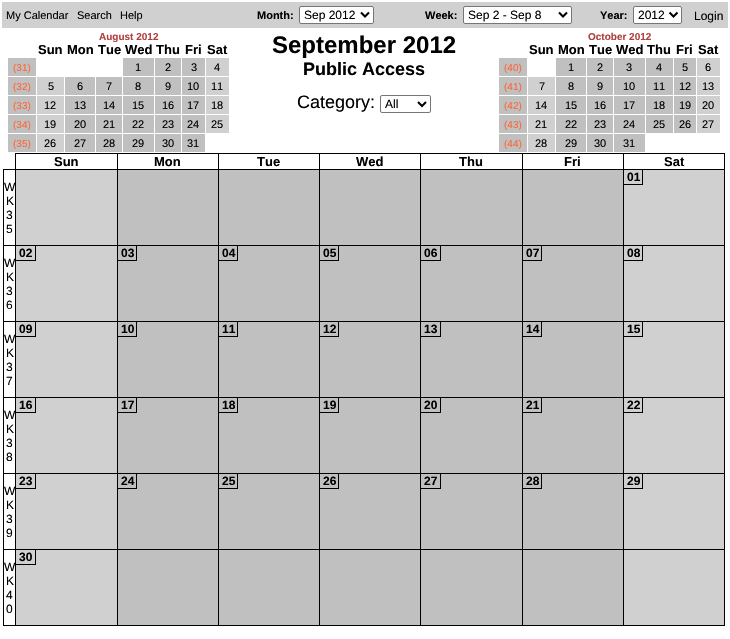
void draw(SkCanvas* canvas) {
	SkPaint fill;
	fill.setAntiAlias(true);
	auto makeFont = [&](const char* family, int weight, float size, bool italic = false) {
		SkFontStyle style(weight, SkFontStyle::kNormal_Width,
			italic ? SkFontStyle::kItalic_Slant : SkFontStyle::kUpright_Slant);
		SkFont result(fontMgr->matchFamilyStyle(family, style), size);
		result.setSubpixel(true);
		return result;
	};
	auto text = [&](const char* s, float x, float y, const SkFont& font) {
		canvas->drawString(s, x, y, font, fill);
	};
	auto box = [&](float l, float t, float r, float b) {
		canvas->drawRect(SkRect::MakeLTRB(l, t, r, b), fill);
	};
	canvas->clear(0xFFFFFFFF);
	fill.setColor(0xFFD0D0D0);
	box(2, 2, 728, 28);
	fill.setColor(0xFFFFFFFF);
	canvas->drawRoundRect(SkRect::MakeLTRB(299.5f, 6.5f, 373.5f, 23.5f), 1.5f, 1.5f, fill);
	fill.setStyle(SkPaint::kStroke_Style);
	fill.setStrokeWidth(1);
	fill.setColor(0xFF767676);
	canvas->drawRoundRect(SkRect::MakeLTRB(299.5f, 6.5f, 373.5f, 23.5f), 1.5f, 1.5f, fill);
	fill.setStrokeWidth(2);
	fill.setColor(0xFF000000);
	canvas->drawPath(SkPathBuilder().moveTo(361, 12.5f).lineTo(365, 16.5f).lineTo(369, 12.5f).detach(), fill);
	fill.setStyle(SkPaint::kFill_Style);
	fill.setColor(0xFFFFFFFF);
	canvas->drawRoundRect(SkRect::MakeLTRB(463.5f, 6.5f, 571.5f, 23.5f), 1.5f, 1.5f, fill);
	fill.setStyle(SkPaint::kStroke_Style);
	fill.setStrokeWidth(1);
	fill.setColor(0xFF767676);
	canvas->drawRoundRect(SkRect::MakeLTRB(463.5f, 6.5f, 571.5f, 23.5f), 1.5f, 1.5f, fill);
	fill.setStrokeWidth(2);
	fill.setColor(0xFF000000);
	canvas->drawPath(SkPathBuilder().moveTo(559, 12.5f).lineTo(563, 16.5f).lineTo(567, 12.5f).detach(), fill);
	fill.setStyle(SkPaint::kFill_Style);
	fill.setColor(0xFFFFFFFF);
	canvas->drawRoundRect(SkRect::MakeLTRB(633.5f, 6.5f, 681.5f, 23.5f), 1.5f, 1.5f, fill);
	fill.setStyle(SkPaint::kStroke_Style);
	fill.setStrokeWidth(1);
	fill.setColor(0xFF767676);
	canvas->drawRoundRect(SkRect::MakeLTRB(633.5f, 6.5f, 681.5f, 23.5f), 1.5f, 1.5f, fill);
	fill.setStrokeWidth(2);
	fill.setColor(0xFF000000);
	canvas->drawPath(SkPathBuilder().moveTo(669.5f, 12.5f).lineTo(673.5f, 16.5f).lineTo(677.5f, 12.5f).detach(), fill);
	fill.setStyle(SkPaint::kFill_Style);
	fill.setColor(0xFFC0C0C0);
	box(8, 58, 36, 76);
	box(123, 58, 154, 76);
	box(155, 58, 181, 76);
	box(182, 58, 205, 76);
	fill.setColor(0xFFD0D0D0);
	box(206, 58, 229, 76);
	fill.setColor(0xFFC0C0C0);
	box(8, 77, 36, 95);
	fill.setColor(0xFFD0D0D0);
	box(37, 77, 64, 95);
	fill.setColor(0xFFC0C0C0);
	box(65, 77, 95, 95);
	box(96, 77, 122, 95);
	box(123, 77, 154, 95);
	box(155, 77, 181, 95);
	box(182, 77, 205, 95);
	fill.setColor(0xFFD0D0D0);
	box(206, 77, 229, 95);
	fill.setColor(0xFFC0C0C0);
	box(8, 96, 36, 114);
	fill.setColor(0xFFD0D0D0);
	box(37, 96, 64, 114);
	fill.setColor(0xFFC0C0C0);
	box(65, 96, 95, 114);
	box(96, 96, 122, 114);
	box(123, 96, 154, 114);
	box(155, 96, 181, 114);
	box(182, 96, 205, 114);
	fill.setColor(0xFFD0D0D0);
	box(206, 96, 229, 114);
	fill.setColor(0xFFC0C0C0);
	box(8, 115, 36, 133);
	fill.setColor(0xFFD0D0D0);
	box(37, 115, 64, 133);
	fill.setColor(0xFFC0C0C0);
	box(65, 115, 95, 133);
	box(96, 115, 122, 133);
	box(123, 115, 154, 133);
	box(155, 115, 181, 133);
	box(182, 115, 205, 133);
	fill.setColor(0xFFD0D0D0);
	box(206, 115, 229, 133);
	fill.setColor(0xFFC0C0C0);
	box(8, 134, 36, 152);
	fill.setColor(0xFFD0D0D0);
	box(37, 134, 64, 152);
	fill.setColor(0xFFC0C0C0);
	box(65, 134, 95, 152);
	box(96, 134, 122, 152);
	box(123, 134, 154, 152);
	box(155, 134, 181, 152);
	box(182, 134, 205, 152);
	fill.setStyle(SkPaint::kStroke_Style);
	fill.setStrokeWidth(1);
	fill.setColor(0xFF767676);
	canvas->drawRoundRect(SkRect::MakeLTRB(380.5f, 95.5f, 430.5f, 112.5f), 1.5f, 1.5f, fill);
	fill.setStrokeWidth(2);
	fill.setColor(0xFF000000);
	canvas->drawPath(SkPathBuilder().moveTo(418, 102).lineTo(422, 106).lineTo(426, 102).detach(), fill);
	fill.setStyle(SkPaint::kFill_Style);
	fill.setColor(0xFFC0C0C0);
	box(499, 58, 527, 76);
	box(556, 58, 586, 76);
	box(587, 58, 613, 76);
	box(614, 58, 645, 76);
	box(646, 58, 673, 76);
	box(674, 58, 696, 76);
	fill.setColor(0xFFD0D0D0);
	box(697, 58, 720, 76);
	fill.setColor(0xFFC0C0C0);
	box(499, 77, 527, 95);
	fill.setColor(0xFFD0D0D0);
	box(528, 77, 555, 95);
	fill.setColor(0xFFC0C0C0);
	box(556, 77, 586, 95);
	box(587, 77, 613, 95);
	box(614, 77, 645, 95);
	box(646, 77, 673, 95);
	box(674, 77, 696, 95);
	fill.setColor(0xFFD0D0D0);
	box(697, 77, 720, 95);
	fill.setColor(0xFFC0C0C0);
	box(499, 96, 527, 114);
	fill.setColor(0xFFD0D0D0);
	box(528, 96, 555, 114);
	fill.setColor(0xFFC0C0C0);
	box(556, 96, 586, 114);
	box(587, 96, 613, 114);
	box(614, 96, 645, 114);
	box(646, 96, 673, 114);
	box(674, 96, 696, 114);
	fill.setColor(0xFFD0D0D0);
	box(697, 96, 720, 114);
	fill.setColor(0xFFC0C0C0);
	box(499, 115, 527, 133);
	fill.setColor(0xFFD0D0D0);
	box(528, 115, 555, 133);
	fill.setColor(0xFFC0C0C0);
	box(556, 115, 586, 133);
	box(587, 115, 613, 133);
	box(614, 115, 645, 133);
	box(646, 115, 673, 133);
	box(674, 115, 696, 133);
	fill.setColor(0xFFD0D0D0);
	box(697, 115, 720, 133);
	fill.setColor(0xFFC0C0C0);
	box(499, 134, 527, 152);
	fill.setColor(0xFFD0D0D0);
	box(528, 134, 555, 152);
	fill.setColor(0xFFC0C0C0);
	box(556, 134, 586, 152);
	box(587, 134, 613, 152);
	box(614, 134, 645, 152);
	fill.setColor(0xFF000000);
	box(724, 153, 725, 626);
	box(3, 625, 725, 626);
	box(15, 153, 724, 154);
	box(15, 153, 16, 169);
	box(117, 153, 118, 169);
	box(218, 153, 219, 169);
	box(319, 153, 320, 169);
	box(420, 153, 421, 169);
	box(522, 153, 523, 169);
	box(623, 153, 624, 169);
	fill.setColor(0xFFD0D0D0);
	box(16, 170, 117, 245);
	fill.setColor(0xFF000000);
	box(3, 169, 724, 170);
	box(15, 169, 16, 245);
	fill.setColor(0xFFC0C0C0);
	box(118, 170, 218, 245);
	fill.setColor(0xFF000000);
	box(117, 169, 118, 245);
	fill.setColor(0xFFC0C0C0);
	box(219, 170, 319, 245);
	fill.setColor(0xFF000000);
	box(218, 169, 219, 245);
	fill.setColor(0xFFC0C0C0);
	box(320, 170, 420, 245);
	fill.setColor(0xFF000000);
	box(319, 169, 320, 245);
	fill.setColor(0xFFC0C0C0);
	box(421, 170, 522, 245);
	fill.setColor(0xFF000000);
	box(420, 169, 421, 245);
	fill.setColor(0xFFC0C0C0);
	box(523, 170, 623, 245);
	fill.setColor(0xFF000000);
	box(522, 169, 523, 245);
	fill.setColor(0xFFD0D0D0);
	box(624, 170, 724, 245);
	fill.setColor(0xFF000000);
	box(623, 169, 624, 245);
	box(642, 170, 643, 185);
	box(624, 184, 643, 185);
	box(3, 169, 4, 245);
	fill.setColor(0xFFD0D0D0);
	box(16, 246, 117, 321);
	fill.setColor(0xFF000000);
	box(3, 245, 724, 246);
	box(15, 245, 16, 321);
	box(35, 246, 36, 261);
	box(16, 260, 36, 261);
	fill.setColor(0xFFC0C0C0);
	box(118, 246, 218, 321);
	fill.setColor(0xFF000000);
	box(117, 245, 118, 321);
	box(136, 246, 137, 261);
	box(118, 260, 137, 261);
	fill.setColor(0xFFC0C0C0);
	box(219, 246, 319, 321);
	fill.setColor(0xFF000000);
	box(218, 245, 219, 321);
	box(237, 246, 238, 261);
	box(219, 260, 238, 261);
	fill.setColor(0xFFC0C0C0);
	box(320, 246, 420, 321);
	fill.setColor(0xFF000000);
	box(319, 245, 320, 321);
	box(338, 246, 339, 261);
	box(320, 260, 339, 261);
	fill.setColor(0xFFC0C0C0);
	box(421, 246, 522, 321);
	fill.setColor(0xFF000000);
	box(420, 245, 421, 321);
	box(440, 246, 441, 261);
	box(421, 260, 441, 261);
	fill.setColor(0xFFC0C0C0);
	box(523, 246, 623, 321);
	fill.setColor(0xFF000000);
	box(522, 245, 523, 321);
	box(541, 246, 542, 261);
	box(523, 260, 542, 261);
	fill.setColor(0xFFD0D0D0);
	box(624, 246, 724, 321);
	fill.setColor(0xFF000000);
	box(623, 245, 624, 321);
	box(642, 246, 643, 261);
	box(624, 260, 643, 261);
	box(3, 245, 4, 321);
	fill.setColor(0xFFD0D0D0);
	box(16, 322, 117, 397);
	fill.setColor(0xFF000000);
	box(3, 321, 724, 322);
	box(15, 321, 16, 397);
	box(35, 322, 36, 337);
	box(16, 336, 36, 337);
	fill.setColor(0xFFC0C0C0);
	box(118, 322, 218, 397);
	fill.setColor(0xFF000000);
	box(117, 321, 118, 397);
	box(136, 322, 137, 337);
	box(118, 336, 137, 337);
	fill.setColor(0xFFC0C0C0);
	box(219, 322, 319, 397);
	fill.setColor(0xFF000000);
	box(218, 321, 219, 397);
	box(237, 322, 238, 337);
	box(219, 336, 238, 337);
	fill.setColor(0xFFC0C0C0);
	box(320, 322, 420, 397);
	fill.setColor(0xFF000000);
	box(319, 321, 320, 397);
	box(338, 322, 339, 337);
	box(320, 336, 339, 337);
	fill.setColor(0xFFC0C0C0);
	box(421, 322, 522, 397);
	fill.setColor(0xFF000000);
	box(420, 321, 421, 397);
	box(440, 322, 441, 337);
	box(421, 336, 441, 337);
	fill.setColor(0xFFC0C0C0);
	box(523, 322, 623, 397);
	fill.setColor(0xFF000000);
	box(522, 321, 523, 397);
	box(541, 322, 542, 337);
	box(523, 336, 542, 337);
	fill.setColor(0xFFD0D0D0);
	box(624, 322, 724, 397);
	fill.setColor(0xFF000000);
	box(623, 321, 624, 397);
	box(642, 322, 643, 337);
	box(624, 336, 643, 337);
	box(3, 321, 4, 397);
	fill.setColor(0xFFD0D0D0);
	box(16, 398, 117, 473);
	fill.setColor(0xFF000000);
	box(3, 397, 724, 398);
	box(15, 397, 16, 473);
	box(35, 398, 36, 413);
	box(16, 412, 36, 413);
	fill.setColor(0xFFC0C0C0);
	box(118, 398, 218, 473);
	fill.setColor(0xFF000000);
	box(117, 397, 118, 473);
	box(136, 398, 137, 413);
	box(118, 412, 137, 413);
	fill.setColor(0xFFC0C0C0);
	box(219, 398, 319, 473);
	fill.setColor(0xFF000000);
	box(218, 397, 219, 473);
	box(237, 398, 238, 413);
	box(219, 412, 238, 413);
	fill.setColor(0xFFC0C0C0);
	box(320, 398, 420, 473);
	fill.setColor(0xFF000000);
	box(319, 397, 320, 473);
	box(338, 398, 339, 413);
	box(320, 412, 339, 413);
	fill.setColor(0xFFC0C0C0);
	box(421, 398, 522, 473);
	fill.setColor(0xFF000000);
	box(420, 397, 421, 473);
	box(440, 398, 441, 413);
	box(421, 412, 441, 413);
	fill.setColor(0xFFC0C0C0);
	box(523, 398, 623, 473);
	fill.setColor(0xFF000000);
	box(522, 397, 523, 473);
	box(541, 398, 542, 413);
	box(523, 412, 542, 413);
	fill.setColor(0xFFD0D0D0);
	box(624, 398, 724, 473);
	fill.setColor(0xFF000000);
	box(623, 397, 624, 473);
	box(642, 398, 643, 413);
	box(624, 412, 643, 413);
	box(3, 397, 4, 473);
	fill.setColor(0xFFD0D0D0);
	box(16, 474, 117, 549);
	fill.setColor(0xFF000000);
	box(3, 473, 724, 474);
	box(15, 473, 16, 549);
	box(35, 474, 36, 489);
	box(16, 488, 36, 489);
	fill.setColor(0xFFC0C0C0);
	box(118, 474, 218, 549);
	fill.setColor(0xFF000000);
	box(117, 473, 118, 549);
	box(136, 474, 137, 489);
	box(118, 488, 137, 489);
	fill.setColor(0xFFC0C0C0);
	box(219, 474, 319, 549);
	fill.setColor(0xFF000000);
	box(218, 473, 219, 549);
	box(237, 474, 238, 489);
	box(219, 488, 238, 489);
	fill.setColor(0xFFC0C0C0);
	box(320, 474, 420, 549);
	fill.setColor(0xFF000000);
	box(319, 473, 320, 549);
	box(338, 474, 339, 489);
	box(320, 488, 339, 489);
	fill.setColor(0xFFC0C0C0);
	box(421, 474, 522, 549);
	fill.setColor(0xFF000000);
	box(420, 473, 421, 549);
	box(440, 474, 441, 489);
	box(421, 488, 441, 489);
	fill.setColor(0xFFC0C0C0);
	box(523, 474, 623, 549);
	fill.setColor(0xFF000000);
	box(522, 473, 523, 549);
	box(541, 474, 542, 489);
	box(523, 488, 542, 489);
	fill.setColor(0xFFD0D0D0);
	box(624, 474, 724, 549);
	fill.setColor(0xFF000000);
	box(623, 473, 624, 549);
	box(642, 474, 643, 489);
	box(624, 488, 643, 489);
	box(3, 473, 4, 549);
	fill.setColor(0xFFD0D0D0);
	box(16, 550, 117, 625);
	fill.setColor(0xFF000000);
	box(3, 549, 724, 550);
	box(15, 549, 16, 625);
	box(35, 550, 36, 565);
	box(16, 564, 36, 565);
	fill.setColor(0xFFC0C0C0);
	box(118, 550, 218, 625);
	fill.setColor(0xFF000000);
	box(117, 549, 118, 625);
	fill.setColor(0xFFC0C0C0);
	box(219, 550, 319, 625);
	fill.setColor(0xFF000000);
	box(218, 549, 219, 625);
	fill.setColor(0xFFC0C0C0);
	box(320, 550, 420, 625);
	fill.setColor(0xFF000000);
	box(319, 549, 320, 625);
	fill.setColor(0xFFC0C0C0);
	box(421, 550, 522, 625);
	fill.setColor(0xFF000000);
	box(420, 549, 421, 625);
	fill.setColor(0xFFC0C0C0);
	box(523, 550, 623, 625);
	fill.setColor(0xFF000000);
	box(522, 549, 523, 625);
	fill.setColor(0xFFD0D0D0);
	box(624, 550, 724, 625);
	fill.setColor(0xFF000000);
	box(623, 549, 624, 625);
	box(3, 549, 4, 625);
	auto font1 = makeFont("Liberation Sans", 400, 11);
	text("My Calendar", 6, 19, font1);
	text("Search", 77, 19, font1);
	text("Help", 120, 19, font1);
	auto font2 = makeFont("Liberation Sans", 700, 11);
	text("Month:", 257, 19, font2);
	auto font3 = makeFont("Liberation Sans", 400, 12);
	text("Sep 2012", 304, 19, font3);
	text("Week:", 425, 19, font2);
	text("Sep 2 - Sep 8", 468, 19, font3);
	text("Year:", 600, 19, font2);
	text("2012", 638, 19, font3);
	text("Login", 694, 20, font3);
	auto font4 = makeFont("Liberation Sans", 700, 10);
	fill.setColor(0xFFB04040);
	text("August 2012", 99, 40, font4);
	auto font5 = makeFont("Liberation Sans", 700, 13);
	fill.setColor(0xFF000000);
	text("Sun", 38, 54, font5);
	text("Mon", 67, 54, font5);
	text("Tue", 98, 54, font5);
	text("Wed", 125, 54, font5);
	text("Thu", 156, 54, font5);
	text("Fri", 185, 54, font5);
	text("Sat", 207, 54, font5);
	auto font6 = makeFont("Liberation Sans", 400, 10);
	fill.setColor(0xFFFF6633);
	text("(31)", 13, 71, font6);
	fill.setColor(0xFF000000);
	text("1", 135, 71, font1);
	text("2", 165, 71, font1);
	text("3", 191, 71, font1);
	text("4", 214, 71, font1);
	fill.setColor(0xFFFF6633);
	text("(32)", 13, 90, font6);
	fill.setColor(0xFF000000);
	text("5", 48, 90, font1);
	text("6", 77, 90, font1);
	text("7", 106, 90, font1);
	text("8", 135, 90, font1);
	text("9", 165, 90, font1);
	text("10", 187, 90, font1);
	text("11", 211, 90, font1);
	fill.setColor(0xFFFF6633);
	text("(33)", 13, 109, font6);
	fill.setColor(0xFF000000);
	text("12", 44, 109, font1);
	text("13", 74, 109, font1);
	text("14", 103, 109, font1);
	text("15", 132, 109, font1);
	text("16", 162, 109, font1);
	text("17", 187, 109, font1);
	text("18", 211, 109, font1);
	fill.setColor(0xFFFF6633);
	text("(34)", 13, 128, font6);
	fill.setColor(0xFF000000);
	text("19", 44, 128, font1);
	text("20", 74, 128, font1);
	text("21", 103, 128, font1);
	text("22", 132, 128, font1);
	text("23", 162, 128, font1);
	text("24", 187, 128, font1);
	text("25", 211, 128, font1);
	fill.setColor(0xFFFF6633);
	text("(35)", 13, 147, font6);
	fill.setColor(0xFF000000);
	text("26", 44, 147, font1);
	text("27", 74, 147, font1);
	text("28", 103, 147, font1);
	text("29", 132, 147, font1);
	text("30", 162, 147, font1);
	text("31", 187, 147, font1);
	auto font7 = makeFont("Liberation Sans", 700, 24);
	text("September 2012", 272, 53, font7);
	auto font8 = makeFont("Liberation Sans", 700, 18);
	text("Public Access", 303, 75, font8);
	auto font9 = makeFont("Liberation Sans", 400, 18);
	text("Category:", 297, 108, font9);
	text("All", 385, 108, font3);
	fill.setColor(0xFFB04040);
	text("October 2012", 588, 40, font4);
	fill.setColor(0xFF000000);
	text("Sun", 529, 54, font5);
	text("Mon", 558, 54, font5);
	text("Tue", 589, 54, font5);
	text("Wed", 616, 54, font5);
	text("Thu", 647, 54, font5);
	text("Fri", 676, 54, font5);
	text("Sat", 698, 54, font5);
	fill.setColor(0xFFFF6633);
	text("(40)", 504, 71, font6);
	fill.setColor(0xFF000000);
	text("1", 568, 71, font1);
	text("2", 597, 71, font1);
	text("3", 626, 71, font1);
	text("4", 656, 71, font1);
	text("5", 682, 71, font1);
	text("6", 705, 71, font1);
	fill.setColor(0xFFFF6633);
	text("(41)", 504, 90, font6);
	fill.setColor(0xFF000000);
	text("7", 539, 90, font1);
	text("8", 568, 90, font1);
	text("9", 597, 90, font1);
	text("10", 623, 90, font1);
	text("11", 653, 90, font1);
	text("12", 679, 90, font1);
	text("13", 702, 90, font1);
	fill.setColor(0xFFFF6633);
	text("(42)", 504, 109, font6);
	fill.setColor(0xFF000000);
	text("14", 535, 109, font1);
	text("15", 565, 109, font1);
	text("16", 594, 109, font1);
	text("17", 623, 109, font1);
	text("18", 653, 109, font1);
	text("19", 679, 109, font1);
	text("20", 702, 109, font1);
	fill.setColor(0xFFFF6633);
	text("(43)", 504, 128, font6);
	fill.setColor(0xFF000000);
	text("21", 535, 128, font1);
	text("22", 565, 128, font1);
	text("23", 594, 128, font1);
	text("24", 623, 128, font1);
	text("25", 653, 128, font1);
	text("26", 679, 128, font1);
	text("27", 702, 128, font1);
	fill.setColor(0xFFFF6633);
	text("(44)", 504, 147, font6);
	fill.setColor(0xFF000000);
	text("28", 535, 147, font1);
	text("29", 565, 147, font1);
	text("30", 594, 147, font1);
	text("31", 623, 147, font1);
	text("Sun", 54, 166, font5);
	text("Mon", 154, 166, font5);
	text("Tue", 257, 166, font5);
	text("Wed", 356, 166, font5);
	text("Thu", 459, 166, font5);
	text("Fri", 564, 166, font5);
	text("Sat", 664, 166, font5);
	auto font10 = makeFont("Liberation Sans", 700, 12);
	text("01", 627, 181, font10);
	text("W", 4, 191, font3);
	text("K", 6, 205, font3);
	text("3", 6, 219, font3);
	text("5", 6, 233, font3);
	text("02", 19, 257, font10);
	text("03", 121, 257, font10);
	text("04", 222, 257, font10);
	text("05", 323, 257, font10);
	text("06", 424, 257, font10);
	text("07", 526, 257, font10);
	text("08", 627, 257, font10);
	text("W", 4, 267, font3);
	text("K", 6, 281, font3);
	text("3", 6, 295, font3);
	text("6", 6, 309, font3);
	text("09", 19, 333, font10);
	text("10", 121, 333, font10);
	text("11", 222, 333, font10);
	text("12", 323, 333, font10);
	text("13", 424, 333, font10);
	text("14", 526, 333, font10);
	text("15", 627, 333, font10);
	text("W", 4, 343, font3);
	text("K", 6, 357, font3);
	text("3", 6, 371, font3);
	text("7", 6, 385, font3);
	text("16", 19, 409, font10);
	text("17", 121, 409, font10);
	text("18", 222, 409, font10);
	text("19", 323, 409, font10);
	text("20", 424, 409, font10);
	text("21", 526, 409, font10);
	text("22", 627, 409, font10);
	text("W", 4, 419, font3);
	text("K", 6, 433, font3);
	text("3", 6, 447, font3);
	text("8", 6, 461, font3);
	text("23", 19, 485, font10);
	text("24", 121, 485, font10);
	text("25", 222, 485, font10);
	text("26", 323, 485, font10);
	text("27", 424, 485, font10);
	text("28", 526, 485, font10);
	text("29", 627, 485, font10);
	text("W", 4, 495, font3);
	text("K", 6, 509, font3);
	text("3", 6, 523, font3);
	text("9", 6, 537, font3);
	text("30", 19, 561, font10);
	text("W", 4, 571, font3);
	text("K", 6, 585, font3);
	text("4", 6, 599, font3);
	text("0", 6, 613, font3);
}
